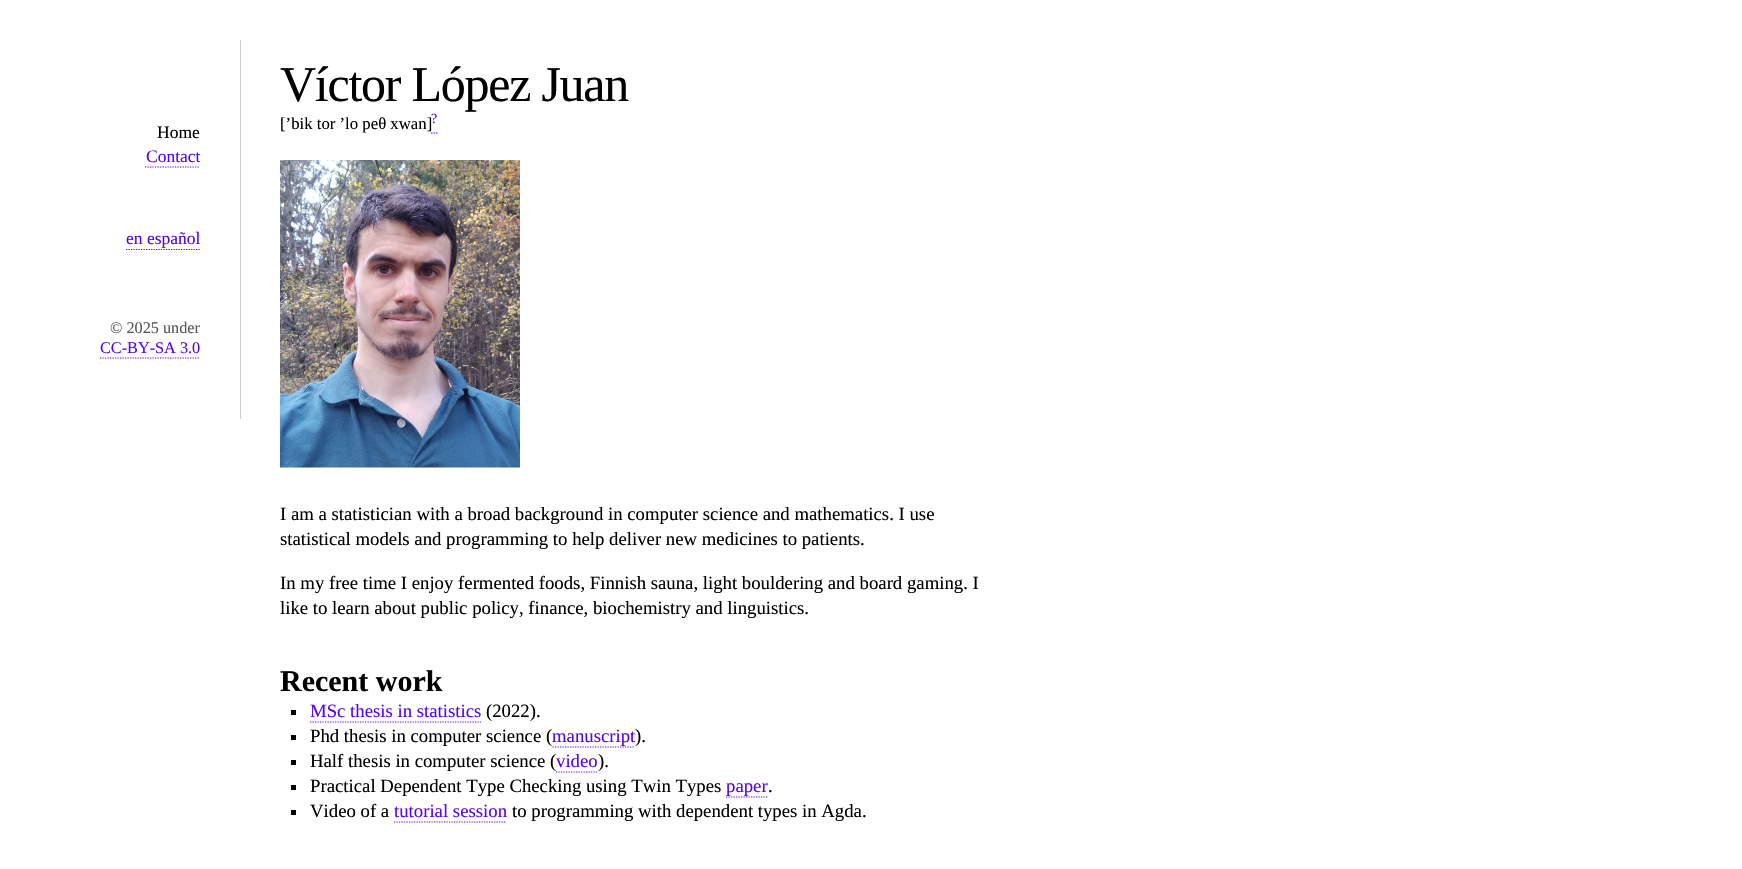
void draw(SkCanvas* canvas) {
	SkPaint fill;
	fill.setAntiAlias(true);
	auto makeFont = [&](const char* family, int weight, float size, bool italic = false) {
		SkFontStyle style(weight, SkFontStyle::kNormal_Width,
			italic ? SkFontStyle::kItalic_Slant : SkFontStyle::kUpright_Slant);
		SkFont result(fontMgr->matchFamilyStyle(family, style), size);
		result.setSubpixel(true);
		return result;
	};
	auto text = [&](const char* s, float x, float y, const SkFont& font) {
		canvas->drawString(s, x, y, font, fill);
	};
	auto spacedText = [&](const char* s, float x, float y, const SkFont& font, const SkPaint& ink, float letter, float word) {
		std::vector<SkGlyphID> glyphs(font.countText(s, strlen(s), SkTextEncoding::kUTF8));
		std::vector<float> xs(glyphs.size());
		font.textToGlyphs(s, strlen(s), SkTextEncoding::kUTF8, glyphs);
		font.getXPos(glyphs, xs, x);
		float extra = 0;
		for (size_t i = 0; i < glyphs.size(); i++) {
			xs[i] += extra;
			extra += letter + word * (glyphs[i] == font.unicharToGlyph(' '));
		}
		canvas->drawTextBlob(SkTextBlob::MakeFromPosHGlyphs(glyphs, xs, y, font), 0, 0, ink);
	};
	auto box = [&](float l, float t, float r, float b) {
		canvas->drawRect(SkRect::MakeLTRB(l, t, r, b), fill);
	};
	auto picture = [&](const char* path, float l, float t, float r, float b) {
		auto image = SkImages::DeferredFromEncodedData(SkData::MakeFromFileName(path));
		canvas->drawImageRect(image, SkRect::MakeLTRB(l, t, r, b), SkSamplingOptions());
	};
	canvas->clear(0xFFFFFFFF);
	fill.setColor(0xFFCCCCCC);
	box(240, 40, 241, 419);
	fill.setStyle(SkPaint::kStroke_Style);
	fill.setStrokeWidth(1.2f);
	fill.setColor(0xFF5607E8);
	fill.setPathEffect(SkDashPathEffect::Make({{1.25f, 1.25f}}, 0));
	canvas->drawPath(SkPathBuilder().moveTo(145, 167).lineTo(200, 167).detach(), fill);
	fill.setPathEffect(nullptr);
	fill.setPathEffect(SkDashPathEffect::Make({{1.25f, 1.25f}}, 0));
	canvas->drawPath(SkPathBuilder().moveTo(126, 249.5f).lineTo(200, 249.5f).detach(), fill);
	fill.setPathEffect(nullptr);
	fill.setPathEffect(SkDashPathEffect::Make({{1.25f, 1.25f}}, 0));
	canvas->drawPath(SkPathBuilder().moveTo(100, 358).lineTo(200, 358).detach(), fill);
	fill.setPathEffect(nullptr);
	canvas->drawPath(SkPathBuilder().moveTo(431, 133).lineTo(432.5f, 133).moveTo(433.5f, 133).lineTo(435, 133).moveTo(436, 133).lineTo(437.5f, 133).detach(), fill);
	picture("image0.png", 280, 160, 520, 468);
	fill.setStyle(SkPaint::kFill_Style);
	fill.setColor(0xFF000000);
	box(291, 710, 296, 715);
	fill.setStyle(SkPaint::kStroke_Style);
	fill.setColor(0xFF5607E8);
	fill.setPathEffect(SkDashPathEffect::Make({{1.25f, 1.25f}}, 0));
	canvas->drawPath(SkPathBuilder().moveTo(310, 722).lineTo(481, 722).detach(), fill);
	fill.setPathEffect(nullptr);
	fill.setStyle(SkPaint::kFill_Style);
	fill.setColor(0xFF000000);
	box(291, 735, 296, 740);
	fill.setStyle(SkPaint::kStroke_Style);
	fill.setColor(0xFF5607E8);
	fill.setPathEffect(SkDashPathEffect::Make({{1.25f, 1.25f}}, 0));
	canvas->drawPath(SkPathBuilder().moveTo(552.5f, 747).lineTo(635, 747).detach(), fill);
	fill.setPathEffect(nullptr);
	fill.setStyle(SkPaint::kFill_Style);
	fill.setColor(0xFF000000);
	box(291, 760, 296, 765);
	fill.setStyle(SkPaint::kStroke_Style);
	fill.setColor(0xFF5607E8);
	fill.setPathEffect(SkDashPathEffect::Make({{1.25f, 1.25f}}, 0));
	canvas->drawPath(SkPathBuilder().moveTo(556, 772).lineTo(597.5f, 772).detach(), fill);
	fill.setPathEffect(nullptr);
	fill.setStyle(SkPaint::kFill_Style);
	fill.setColor(0xFF000000);
	box(291, 785, 296, 790);
	fill.setStyle(SkPaint::kStroke_Style);
	fill.setColor(0xFF5607E8);
	fill.setPathEffect(SkDashPathEffect::Make({{1.25f, 1.25f}}, 0));
	canvas->drawPath(SkPathBuilder().moveTo(726, 797).lineTo(767.5f, 797).detach(), fill);
	fill.setPathEffect(nullptr);
	fill.setStyle(SkPaint::kFill_Style);
	fill.setColor(0xFF000000);
	box(291, 810, 296, 815);
	fill.setStyle(SkPaint::kStroke_Style);
	fill.setColor(0xFF5607E8);
	fill.setPathEffect(SkDashPathEffect::Make({{1.25f, 1.25f}}, 0));
	canvas->drawPath(SkPathBuilder().moveTo(394, 822).lineTo(506, 822).detach(), fill);
	fill.setPathEffect(nullptr);
	auto font1 = makeFont("Liberation Serif", 400, 17.5f);
	fill.setStyle(SkPaint::kFill_Style);
	fill.setColor(0xFF000000);
	text("Home", 157, 138, font1);
	fill.setColor(0xFF5607E8);
	text("Contact", 146, 162, font1);
	text("en español", 126, 244, font1);
	auto font2 = makeFont("Liberation Serif", 400, 16.25f);
	fill.setColor(0xFF555555);
	text("© 2025 under", 110, 333, font2);
	fill.setColor(0xFF5607E8);
	text("CC-BY-SA 3.0", 100, 353, font2);
	auto font3 = makeFont("Liberation Serif", 400, 50);
	fill.setColor(0xFF000000);
	spacedText("Víctor López Juan", 280, 101, font3, fill, -1.25f, 0);
	auto font4 = makeFont("Liberation Serif", 400, 16.75f);
	text("[’bik tor ’lo peθ xwan]", 280, 129, font4);
	auto font5 = makeFont("Liberation Serif", 400, 14);
	fill.setColor(0xFF5607E8);
	text("?", 431, 123, font5);
	auto font6 = makeFont("Liberation Serif", 400, 18.75f);
	fill.setColor(0xFF000000);
	text("I am a statistician with a broad background in computer science and mathematics. I use", 280, 520, font6);
	text("statistical models and programming to help deliver new medicines to patients.", 280, 545, font6);
	text("In my free time I enjoy fermented foods, Finnish sauna, light bouldering and board gaming. I", 280, 589, font6);
	text("like to learn about public policy, finance, biochemistry and linguistics.", 280, 614, font6);
	auto font7 = makeFont("Liberation Serif", 700, 30);
	text("Recent work", 280, 691, font7);
	fill.setColor(0xFF5607E8);
	text("MSc thesis in statistics", 310, 717, font6);
	fill.setColor(0xFF000000);
	text("(2022).", 486, 717, font6);
	text("Phd thesis in computer science (", 310, 742, font6);
	fill.setColor(0xFF5607E8);
	text("manuscript", 552, 742, font6);
	fill.setColor(0xFF000000);
	text(").", 635, 742, font6);
	text("Half thesis in computer science (", 310, 767, font6);
	fill.setColor(0xFF5607E8);
	text("video", 556, 767, font6);
	fill.setColor(0xFF000000);
	text(").", 598, 767, font6);
	text("Practical Dependent Type Checking using Twin Types", 310, 792, font6);
	fill.setColor(0xFF5607E8);
	text("paper", 726, 792, font6);
	fill.setColor(0xFF000000);
	text(".", 768, 792, font6);
	text("Video of a", 310, 817, font6);
	fill.setColor(0xFF5607E8);
	text("tutorial session", 394, 817, font6);
	fill.setColor(0xFF000000);
	text("to programming with dependent types in Agda.", 512, 817, font6);
}
